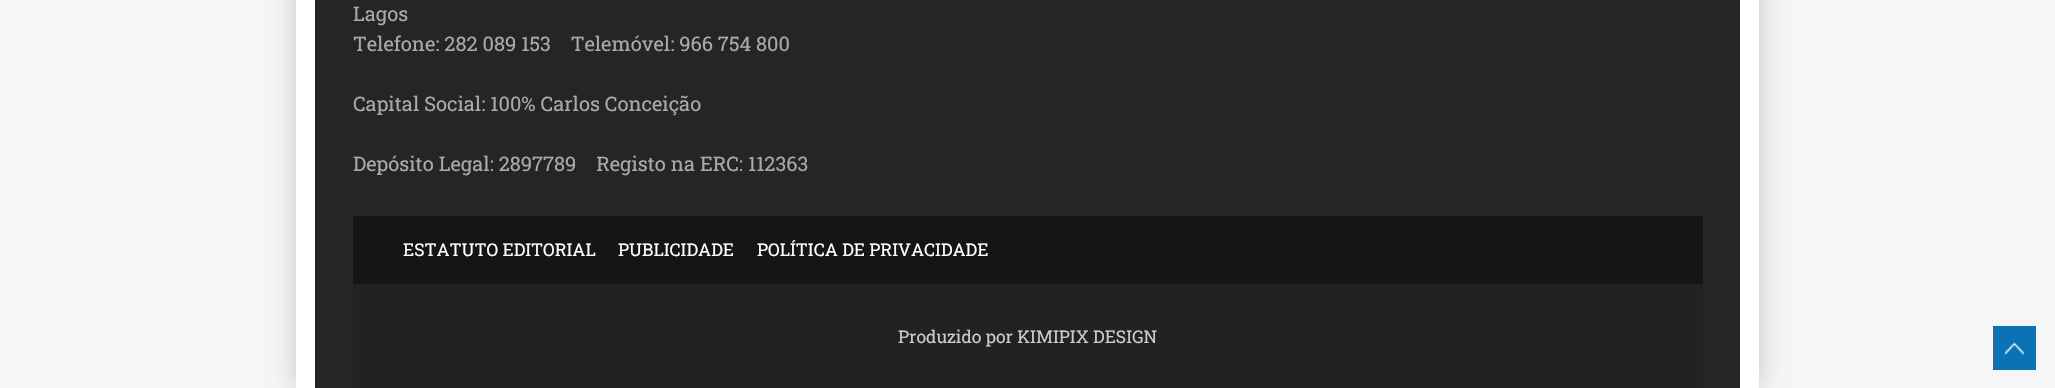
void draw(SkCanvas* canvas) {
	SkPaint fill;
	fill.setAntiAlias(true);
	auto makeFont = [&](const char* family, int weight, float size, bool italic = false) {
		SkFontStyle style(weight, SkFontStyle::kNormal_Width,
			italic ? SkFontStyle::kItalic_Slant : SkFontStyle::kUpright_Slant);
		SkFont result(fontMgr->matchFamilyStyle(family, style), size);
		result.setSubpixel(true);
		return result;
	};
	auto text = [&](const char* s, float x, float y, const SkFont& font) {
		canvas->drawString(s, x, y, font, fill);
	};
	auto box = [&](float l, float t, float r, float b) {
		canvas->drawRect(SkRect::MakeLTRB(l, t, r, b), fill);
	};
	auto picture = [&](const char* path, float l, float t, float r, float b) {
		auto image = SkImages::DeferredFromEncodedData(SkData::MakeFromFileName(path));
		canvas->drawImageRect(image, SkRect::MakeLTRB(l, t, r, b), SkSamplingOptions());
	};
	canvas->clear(0xFFF4F7F6);
	fill.setColor(0x33000000);
	fill.setMaskFilter(SkMaskFilter::MakeBlur(kNormal_SkBlurStyle, 12.5f));
	canvas->drawRect(SkRect::MakeLTRB(296, -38, 1759, 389), fill);
	fill.setMaskFilter(nullptr);
	fill.setColor(0xFFFFFFFF);
	box(296, 0, 1759, 388);
	fill.setColor(0xFF252525);
	box(315, 0, 1740, 388);
	fill.setColor(0xFF151515);
	box(353, 216, 1703, 284);
	fill.setColor(0xFF222222);
	box(353, 284, 1703, 388);
	fill.setColor(0xFF0B72B5);
	box(1993, 326, 2036, 370);
	picture("image0.png", 2004, 342, 2024, 355);
	auto font1 = makeFont("Roboto Slab", 400, 20);
	fill.setColor(0xFFAAAAAA);
	text("Lagos", 353, 21, font1);
	text("Telefone: 282 089 153    Telemóvel: 966 754 800", 353, 51, font1);
	text("Capital Social: 100% Carlos Conceição", 353, 111, font1);
	text("Depósito Legal: 2897789    Registo na ERC: 112363", 353, 171, font1);
	auto font2 = makeFont("Roboto Slab", 400, 17.5f);
	fill.setColor(0xFFFFFFFF);
	text("ESTATUTO EDITORIAL", 403, 256, font2);
	text("PUBLICIDADE", 618, 256, font2);
	text("POLÍTICA DE PRIVACIDADE", 757, 256, font2);
	fill.setColor(0xFFCCCCCC);
	text("Produzido por KIMIPIX DESIGN", 898, 343, font2);
}
